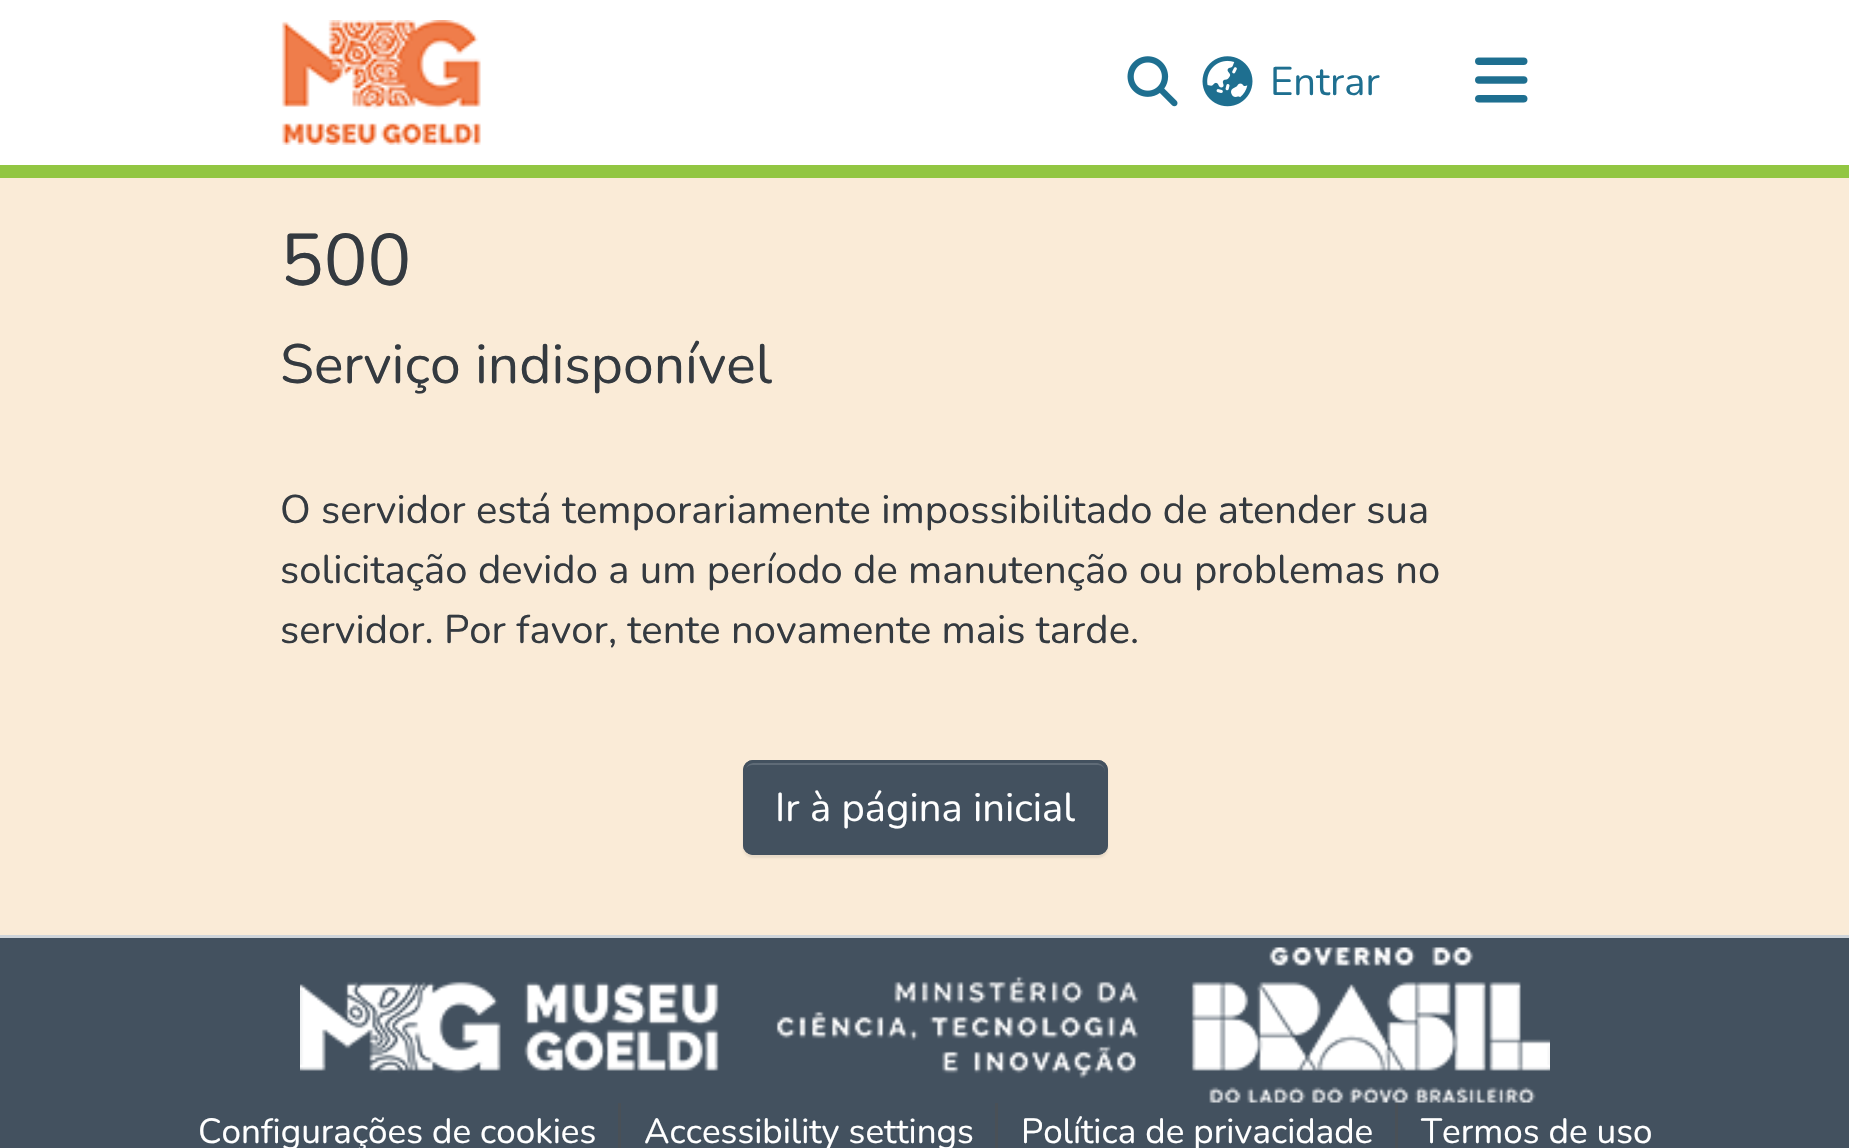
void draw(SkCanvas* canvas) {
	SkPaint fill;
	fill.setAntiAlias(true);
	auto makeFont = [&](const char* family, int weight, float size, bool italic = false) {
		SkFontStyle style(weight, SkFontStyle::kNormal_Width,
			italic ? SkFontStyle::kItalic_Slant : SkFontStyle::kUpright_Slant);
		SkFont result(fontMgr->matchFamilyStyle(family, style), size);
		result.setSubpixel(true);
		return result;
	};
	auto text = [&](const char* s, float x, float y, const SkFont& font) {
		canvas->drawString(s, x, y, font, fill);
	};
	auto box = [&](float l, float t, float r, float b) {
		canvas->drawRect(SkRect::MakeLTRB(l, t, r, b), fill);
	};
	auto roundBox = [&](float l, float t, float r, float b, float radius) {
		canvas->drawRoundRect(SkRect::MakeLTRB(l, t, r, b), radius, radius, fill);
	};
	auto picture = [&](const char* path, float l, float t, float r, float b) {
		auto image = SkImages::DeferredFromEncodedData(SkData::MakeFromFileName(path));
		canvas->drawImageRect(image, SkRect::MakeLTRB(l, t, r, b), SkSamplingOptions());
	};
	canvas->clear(0xFFFAEBD7);
	fill.setColor(0xFF92C642);
	box(0, 165, 1849, 178);
	fill.setColor(0xFFFFFFFF);
	box(0, 0, 1849, 165);
	picture("image0.png", 281, 20, 481, 145);
	picture("image1.png", 1127, 56, 1178, 107);
	picture("image2.png", 1202, 56, 1253, 107);
	picture("image3.png", 1475, 57, 1528, 103);
	fill.setColor(0x12000000);
	fill.setMaskFilter(SkMaskFilter::MakeBlur(kNormal_SkBlurStyle, 1));
	canvas->drawRoundRect(SkRect::MakeLTRB(743, 763, 1108, 858), 10, 10, fill);
	fill.setMaskFilter(nullptr);
	fill.setColor(0xFF43515F);
	roundBox(743, 760, 1108, 855, 10);
	fill.setColor(0xFF5F6B77);
	canvas->drawPath(SkPathBuilder().moveTo(752, 765).lineTo(1098, 765).cubicTo(1102, 765, 1105, 768, 1105, 772).lineTo(1105, 771).cubicTo(1105, 767, 1101, 763, 1097, 763).lineTo(753, 763).cubicTo(749, 763, 745, 767, 745, 771).lineTo(745, 772).cubicTo(745, 768, 748, 765, 752, 765).close().detach(), fill);
	fill.setStyle(SkPaint::kStroke_Style);
	fill.setStrokeWidth(3);
	fill.setColor(0xFF43515F);
	canvas->drawRoundRect(SkRect::MakeLTRB(744.5f, 761.5f, 1106.5f, 853.5f), 8.5f, 8.5f, fill);
	fill.setStyle(SkPaint::kFill_Style);
	box(0, 938, 1849, 1148);
	fill.setColor(0xFFCED4DA);
	box(0, 935, 1849, 938);
	picture("image4.png", 300, 947, 1550, 1103);
	fill.setColor(0xFF495057);
	box(618, 1103, 621, 1148);
	box(995, 1103, 998, 1148);
	box(1395, 1103, 1398, 1148);
	auto font1 = makeFont("Nunito", 400, 40);
	fill.setColor(0xFF1E6F90);
	text("Entrar", 1270, 95, font1);
	auto font2 = makeFont("Nunito", 400, 73);
	fill.setColor(0xFF343A40);
	text("500", 280, 285, font2);
	auto font3 = makeFont("Nunito", 400, 55.25f);
	text("Serviço indisponível", 280, 383, font3);
	text("O servidor está temporariamente impossibilitado de atender sua", 280, 523, font1);
	text("solicitação devido a um período de manutenção ou problemas no", 280, 583, font1);
	text("servidor. Por favor, tente novamente mais tarde.", 280, 643, font1);
	fill.setColor(0xFFFFFFFF);
	text("Ir à página inicial", 775, 821, font1);
	auto font4 = makeFont("Nunito", 400, 35);
	text("Configurações de cookies", 198, 1143, font4);
	text("Accessibility settings", 644, 1143, font4);
	text("Política de privacidade", 1021, 1143, font4);
	text("Termos de uso", 1421, 1143, font4);
}
